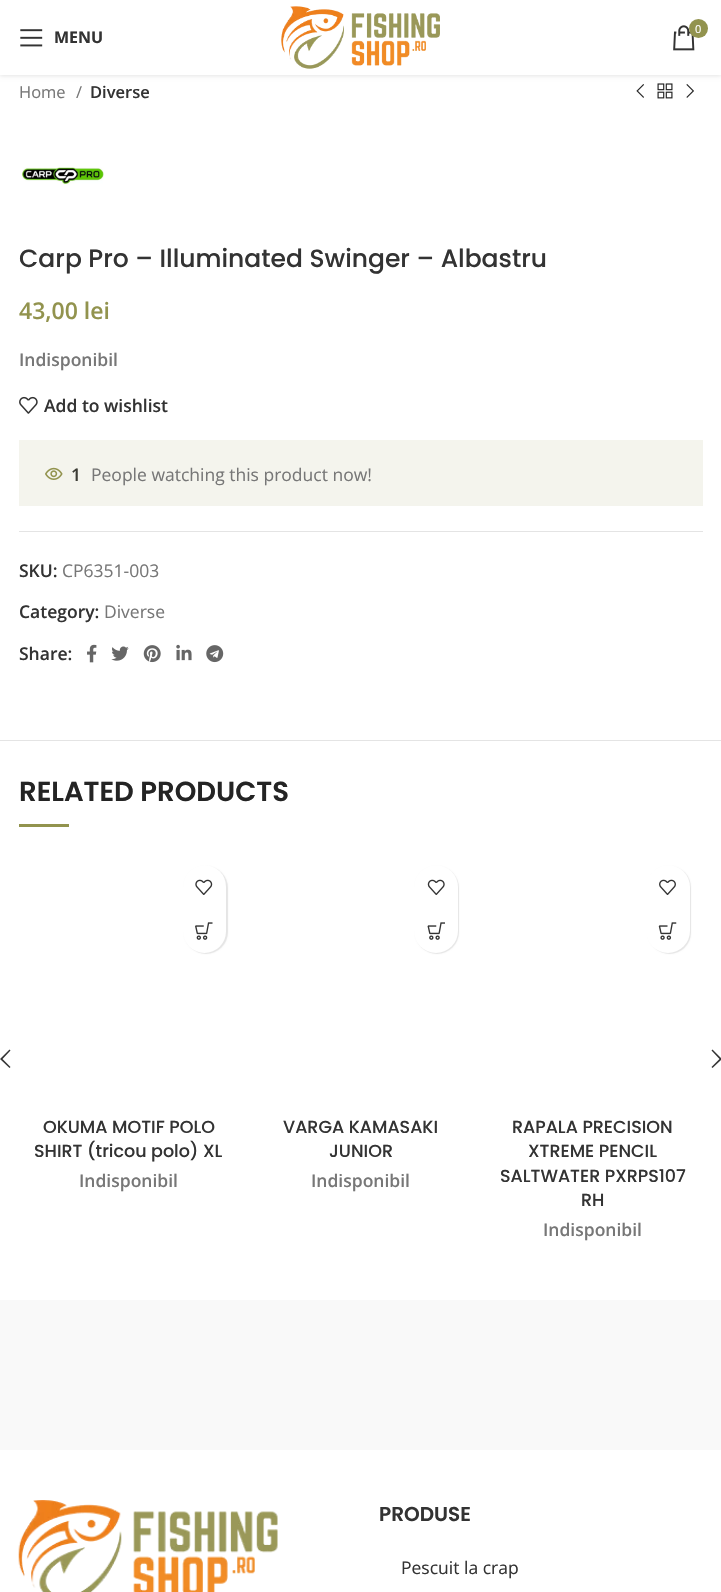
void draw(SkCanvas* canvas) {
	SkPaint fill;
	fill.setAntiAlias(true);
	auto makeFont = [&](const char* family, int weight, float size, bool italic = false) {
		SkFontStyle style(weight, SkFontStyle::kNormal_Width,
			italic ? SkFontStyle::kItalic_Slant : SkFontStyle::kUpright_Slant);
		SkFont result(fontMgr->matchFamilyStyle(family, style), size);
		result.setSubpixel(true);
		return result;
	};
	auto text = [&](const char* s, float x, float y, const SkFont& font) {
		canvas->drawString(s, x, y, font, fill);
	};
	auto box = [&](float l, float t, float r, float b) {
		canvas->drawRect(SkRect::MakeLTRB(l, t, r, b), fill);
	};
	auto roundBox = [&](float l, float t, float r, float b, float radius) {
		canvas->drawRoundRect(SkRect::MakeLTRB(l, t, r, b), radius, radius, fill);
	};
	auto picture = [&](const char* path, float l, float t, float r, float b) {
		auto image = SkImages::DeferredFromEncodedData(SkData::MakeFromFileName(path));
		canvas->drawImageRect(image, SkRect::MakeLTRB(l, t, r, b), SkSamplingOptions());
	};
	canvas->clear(0xFFFFFFFF);
	fill.setColor(0xFFF4F4ED);
	box(19, 440, 703, 506);
	fill.setColor(0x1A000000);
	fill.setMaskFilter(SkMaskFilter::MakeBlur(kNormal_SkBlurStyle, 2));
	canvas->drawRect(SkRect::MakeLTRB(0, 1, 721, 76), fill);
	fill.setMaskFilter(nullptr);
	fill.setColor(0xFFFFFFFF);
	box(0, 0, 721, 75);
	picture("image0.png", 281, 6, 440, 69);
	picture("image1.png", 673, 25, 695, 51);
	fill.setColor(0xFF92934E);
	canvas->drawCircle(698.5f, 28.5f, 9.5f, fill);
	picture("image2.png", 20, 29, 43, 47);
	picture("image3.png", 636, 84, 644, 98);
	picture("image4.png", 657, 83, 673, 99);
	picture("image5.png", 686, 84, 694, 98);
	picture("image6.png", 22, 167, 104, 185);
	picture("image7.png", 19, 396, 38, 414);
	picture("image8.png", 45, 467, 63, 480);
	fill.setColor(0xFFE4E4E4);
	box(19, 531, 703, 532);
	picture("image9.png", 87, 644, 97, 663);
	picture("image10.png", 111, 646, 129, 661);
	picture("image11.png", 143, 645, 161, 663);
	picture("image12.png", 176, 644, 192, 661);
	picture("image13.png", 206, 645, 224, 663);
	box(0, 740, 721, 741);
	fill.setColor(0xFF92934E);
	box(19, 824, 69, 827);
	fill.setColor(0xFF333333);
	canvas->drawPath(SkPathBuilder().moveTo(10.5f, 1050.5f).lineTo(9.5f, 1049.5f).lineTo(0, 1059).lineTo(9.5f, 1068).lineTo(10.5f, 1067).lineTo(2.5f, 1059).close().detach(), fill);
	canvas->drawPath(SkPathBuilder().moveTo(711.5f, 1050.5f).lineTo(719.5f, 1059).lineTo(711.5f, 1067).lineTo(712.5f, 1068).lineTo(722, 1059).lineTo(712.5f, 1049.5f).close().detach(), fill);
	fill.setColor(0x1A000000);
	fill.setMaskFilter(SkMaskFilter::MakeBlur(kNormal_SkBlurStyle, 0.5f));
	canvas->drawRoundRect(SkRect::MakeLTRB(184, 866, 228, 954), 22, 22, fill);
	fill.setMaskFilter(nullptr);
	fill.setColor(0xFFFFFFFF);
	roundBox(183, 865, 226, 953, 21.5f);
	picture("image14.png", 195, 879, 213, 895);
	picture("image15.png", 195, 922, 213, 940);
	fill.setColor(0x1A000000);
	fill.setMaskFilter(SkMaskFilter::MakeBlur(kNormal_SkBlurStyle, 0.5f));
	canvas->drawRoundRect(SkRect::MakeLTRB(415, 866, 459, 954), 22, 22, fill);
	fill.setMaskFilter(nullptr);
	fill.setColor(0xFFFFFFFF);
	roundBox(414, 865, 458, 953, 22);
	picture("image16.png", 427, 879, 445, 895);
	picture("image17.png", 427, 922, 445, 940);
	fill.setColor(0x1A000000);
	fill.setMaskFilter(SkMaskFilter::MakeBlur(kNormal_SkBlurStyle, 0.5f));
	canvas->drawRoundRect(SkRect::MakeLTRB(648, 866, 691, 954), 21.5f, 21.5f, fill);
	fill.setMaskFilter(nullptr);
	fill.setColor(0xFFFFFFFF);
	roundBox(646, 865, 690, 953, 22);
	picture("image18.png", 659, 879, 676, 895);
	picture("image19.png", 658, 922, 677, 940);
	fill.setColor(0xFFF9F9F9);
	box(0, 1300, 721, 1450);
	picture("image20.png", 18, 1500, 278, 1592);
	auto font1 = makeFont("Open Sans", 400, 11);
	fill.setColor(0xFFFFFFFF);
	text("0", 695, 33, font1);
	auto font2 = makeFont("Open Sans", 700, 16);
	fill.setColor(0xFF333333);
	text("MENU", 54, 43, font2);
	auto font3 = makeFont("Open Sans", 400, 16.5f);
	fill.setColor(0xFF777777);
	text("Home", 19, 98, font3);
	text("/", 76, 98, font3);
	auto font4 = makeFont("Open Sans", 600, 16.5f);
	fill.setColor(0xFF333333);
	text("Diverse", 90, 98, font4);
	auto font5 = makeFont("Poppins", 500, 25);
	text("Carp Pro – Illuminated Swinger – Albastru", 19, 267, font5);
	auto font6 = makeFont("Open Sans", 600, 23);
	fill.setColor(0xFF92934E);
	text("43,00 lei", 19, 319, font6);
	auto font7 = makeFont("Open Sans", 600, 17.5f);
	fill.setColor(0xFF777777);
	text("Indisponibil", 19, 366, font7);
	fill.setColor(0xFF333333);
	text("Add to wishlist", 44, 412, font7);
	fill.setColor(0xFF3D3D36);
	text("1", 71, 481, font7);
	auto font8 = makeFont("Open Sans", 400, 17.5f);
	fill.setColor(0xFF777777);
	text("People watching this product now!", 91, 481, font8);
	fill.setColor(0xFF333333);
	text("SKU:", 19, 577, font7);
	fill.setColor(0xFF777777);
	text("CP6351-003", 62, 577, font8);
	fill.setColor(0xFF333333);
	text("Category:", 19, 618, font7);
	fill.setColor(0xFF777777);
	text("Diverse", 104, 618, font8);
	fill.setColor(0xFF333333);
	text("Share:", 19, 660, font7);
	auto font9 = makeFont("Poppins", 600, 27.5f);
	fill.setColor(0xFF242424);
	text("RELATED PRODUCTS", 19, 801, font9);
	auto font10 = makeFont("Poppins", 500, 17.5f);
	fill.setColor(0xFF333333);
	text("OKUMA MOTIF POLO", 43, 1133, font10);
	text("SHIRT (tricou polo) XL", 34, 1157, font10);
	fill.setColor(0xFF777777);
	text("Indisponibil", 79, 1187, font7);
	fill.setColor(0xFF333333);
	text("VARGA KAMASAKI", 283, 1133, font10);
	text("JUNIOR", 329, 1157, font10);
	fill.setColor(0xFF777777);
	text("Indisponibil", 311, 1187, font7);
	fill.setColor(0xFF333333);
	text("RAPALA PRECISION", 512, 1133, font10);
	text("XTREME PENCIL", 528, 1157, font10);
	text("SALTWATER PXRPS107", 500, 1182, font10);
	text("RH", 581, 1206, font10);
	fill.setColor(0xFF777777);
	text("Indisponibil", 543, 1236, font7);
	auto font11 = makeFont("Poppins", 600, 20);
	fill.setColor(0xFF333333);
	text("PRODUSE", 379, 1521, font11);
	text("Pescuit la crap", 401, 1574, font8);
}
